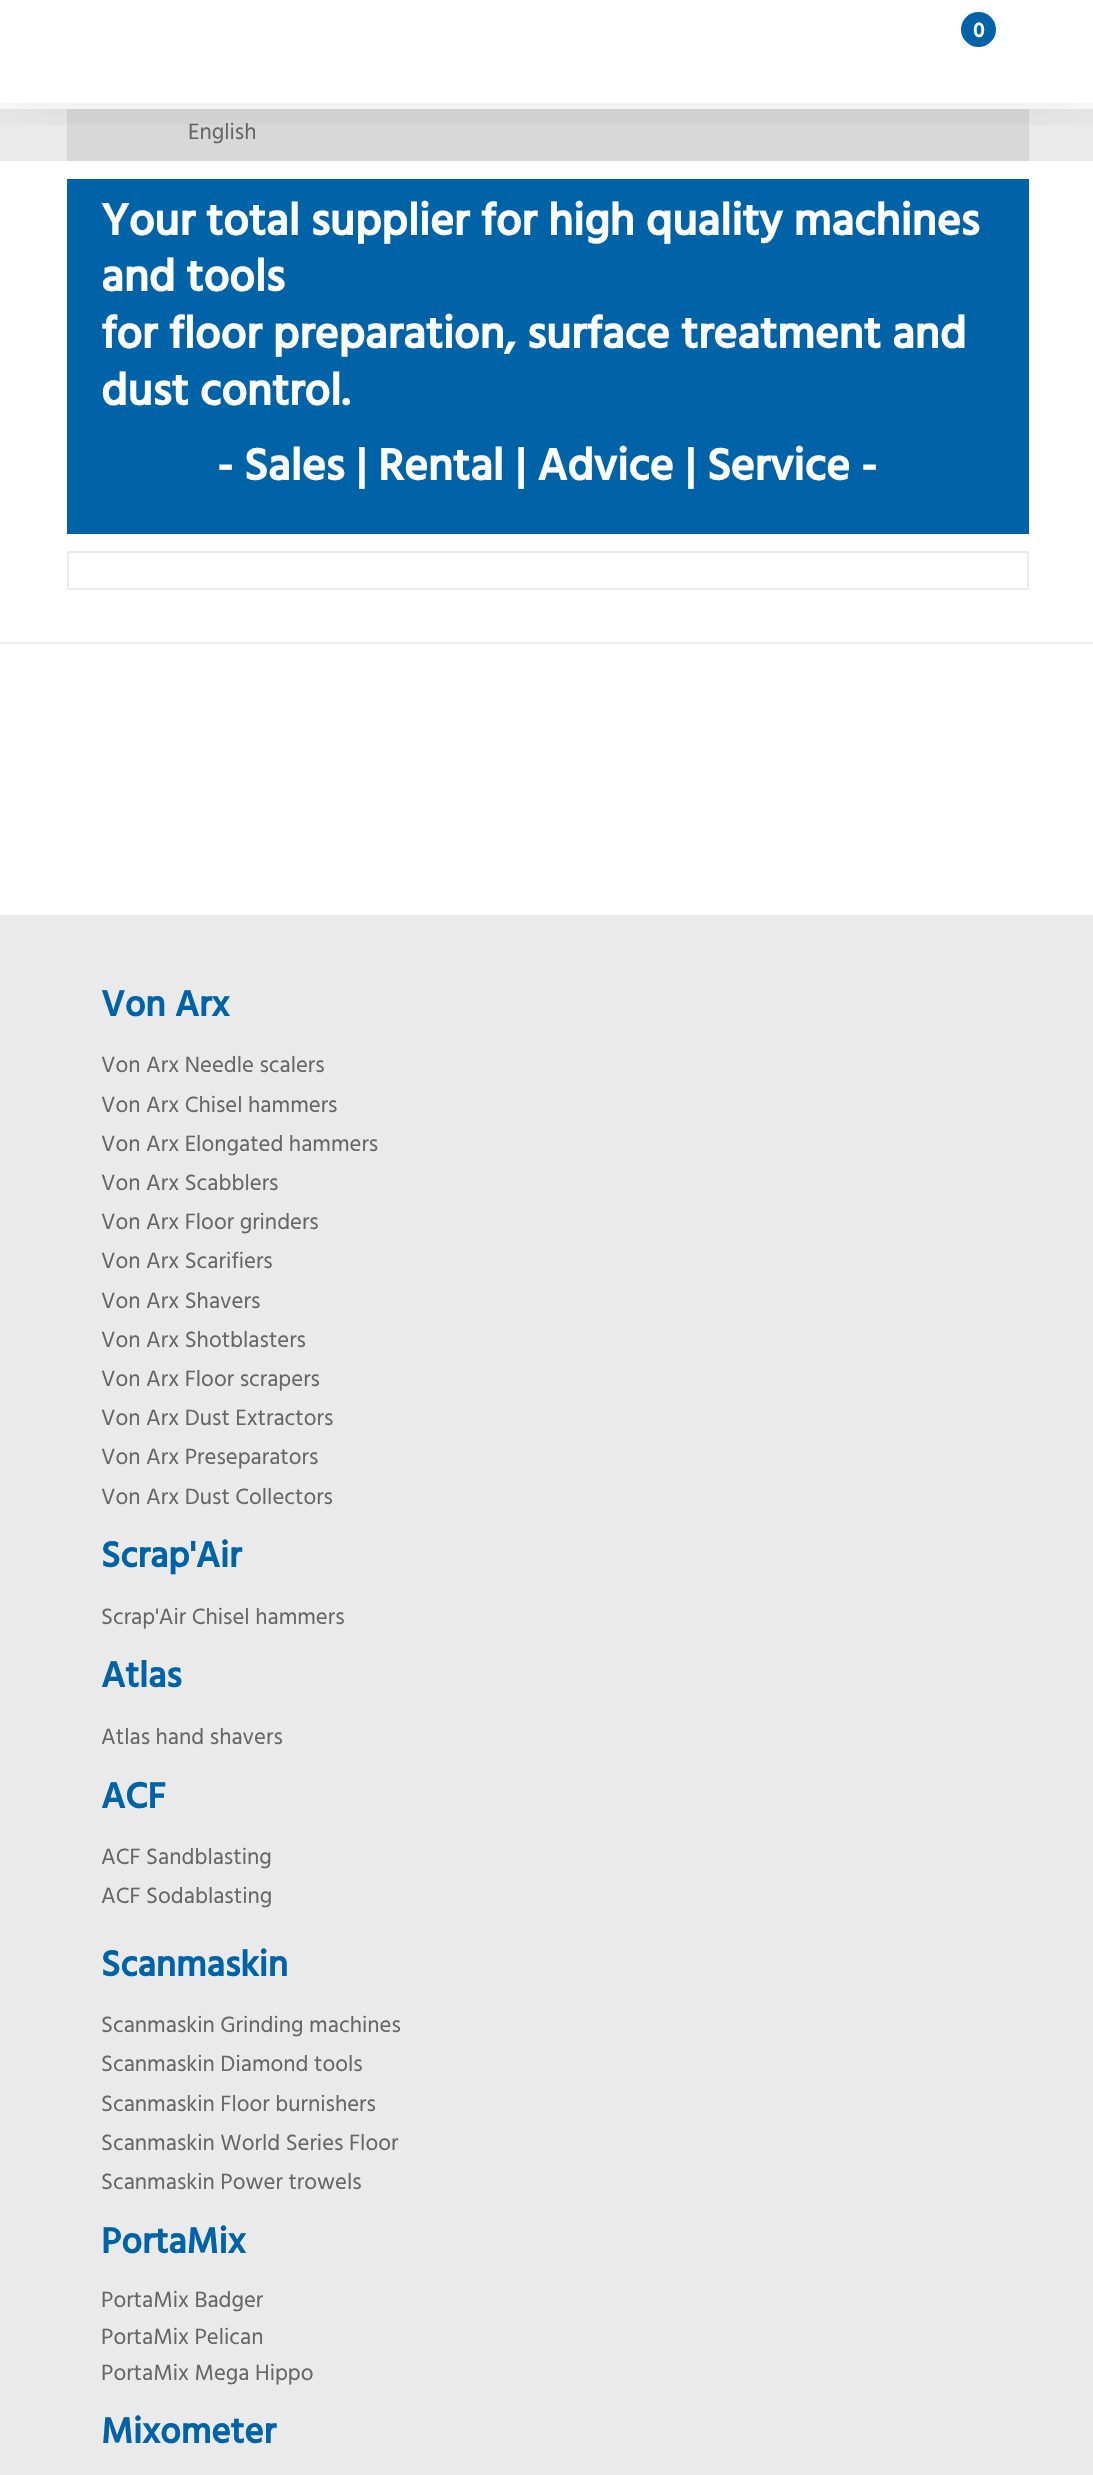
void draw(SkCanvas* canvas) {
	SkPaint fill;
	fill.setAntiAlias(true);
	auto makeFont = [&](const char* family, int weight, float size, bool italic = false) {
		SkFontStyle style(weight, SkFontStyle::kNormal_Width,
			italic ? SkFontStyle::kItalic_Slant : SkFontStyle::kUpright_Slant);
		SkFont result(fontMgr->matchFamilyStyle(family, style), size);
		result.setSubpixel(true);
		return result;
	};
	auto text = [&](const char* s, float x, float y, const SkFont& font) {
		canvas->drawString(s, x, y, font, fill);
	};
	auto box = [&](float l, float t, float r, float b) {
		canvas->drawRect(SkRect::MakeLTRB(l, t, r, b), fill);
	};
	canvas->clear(0xFFFFFFFF);
	fill.setColor(0xFFEAEAEA);
	box(0, 109, 1093, 161);
	fill.setColor(0xFFD8D8D8);
	box(67, 109, 1029, 161);
	fill.setColor(0xFF0063A7);
	box(67, 179, 1029, 534);
	canvas->save();
	canvas->clipRect(SkRect::MakeLTRB(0, 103, 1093, 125));
	fill.setColor(0x1A000000);
	fill.setMaskFilter(SkMaskFilter::MakeBlur(kNormal_SkBlurStyle, 26));
	canvas->drawRect(SkRect::MakeLTRB(0, 0, 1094, 103), fill);
	fill.setMaskFilter(nullptr);
	canvas->restore();
	fill.setColor(0xFF0062A7);
	canvas->drawCircle(978.5f, 29.5f, 17.5f, fill);
	fill.setStyle(SkPaint::kStroke_Style);
	fill.setStrokeWidth(2);
	fill.setColor(0xFFEAEAEA);
	canvas->drawRect(SkRect::MakeLTRB(68, 552, 1028, 589), fill);
	fill.setStyle(SkPaint::kFill_Style);
	fill.setColor(0xFFEEEEEE);
	box(0, 642, 1093, 644);
	fill.setColor(0xFFEAEAEA);
	box(0, 915, 1093, 2475);
	auto font1 = makeFont("Hind", 700, 21);
	fill.setColor(0xFFFFFFFF);
	text("0", 973, 37, font1);
	auto font2 = makeFont("Hind", 400, 22.75f);
	fill.setColor(0xFF666666);
	text("English", 188, 139, font2);
	auto font3 = makeFont("Hind", 700, 45.5f);
	fill.setColor(0xFFFFFFFF);
	text("Your total supplier for high quality machines", 101, 235, font3);
	text("and tools", 101, 291, font3);
	text("for floor preparation, surface treatment and", 101, 348, font3);
	text("dust control.", 101, 405, font3);
	text("- Sales | Rental | Advice | Service -", 217, 480, font3);
	auto font4 = makeFont("Hind", 700, 36.75f);
	fill.setColor(0xFF0063A7);
	text("Von Arx", 101, 1016, font4);
	fill.setColor(0xFF666666);
	text("Von Arx Needle scalers", 101, 1072, font2);
	text("Von Arx Chisel hammers", 101, 1112, font2);
	text("Von Arx Elongated hammers", 101, 1151, font2);
	text("Von Arx Scabblers", 101, 1190, font2);
	text("Von Arx Floor grinders", 101, 1229, font2);
	text("Von Arx Scarifiers", 101, 1268, font2);
	text("Von Arx Shavers", 101, 1308, font2);
	text("Von Arx Shotblasters", 101, 1347, font2);
	text("Von Arx Floor scrapers", 101, 1386, font2);
	text("Von Arx Dust Extractors", 101, 1425, font2);
	text("Von Arx Preseparators", 101, 1464, font2);
	text("Von Arx Dust Collectors", 101, 1504, font2);
	fill.setColor(0xFF0063A7);
	text("Scrap'Air", 101, 1567, font4);
	fill.setColor(0xFF666666);
	text("Scrap'Air Chisel hammers", 101, 1624, font2);
	fill.setColor(0xFF0063A7);
	text("Atlas", 101, 1687, font4);
	fill.setColor(0xFF666666);
	text("Atlas hand shavers", 101, 1744, font2);
	fill.setColor(0xFF0063A7);
	text("ACF", 101, 1808, font4);
	fill.setColor(0xFF666666);
	text("ACF Sandblasting", 101, 1864, font2);
	text("ACF Sodablasting", 101, 1903, font2);
	fill.setColor(0xFF0063A7);
	text("Scanmaskin", 101, 1976, font4);
	fill.setColor(0xFF666666);
	text("Scanmaskin Grinding machines", 101, 2032, font2);
	text("Scanmaskin Diamond tools", 101, 2071, font2);
	text("Scanmaskin Floor burnishers", 101, 2111, font2);
	text("Scanmaskin World Series Floor", 101, 2150, font2);
	text("Scanmaskin Power trowels", 101, 2189, font2);
	fill.setColor(0xFF0063A7);
	text("PortaMix", 101, 2253, font4);
	fill.setColor(0xFF666666);
	text("PortaMix Badger", 101, 2307, font2);
	text("PortaMix Pelican", 101, 2344, font2);
	text("PortaMix Mega Hippo", 101, 2380, font2);
	fill.setColor(0xFF0063A7);
	text("Mixometer", 101, 2443, font4);
}
